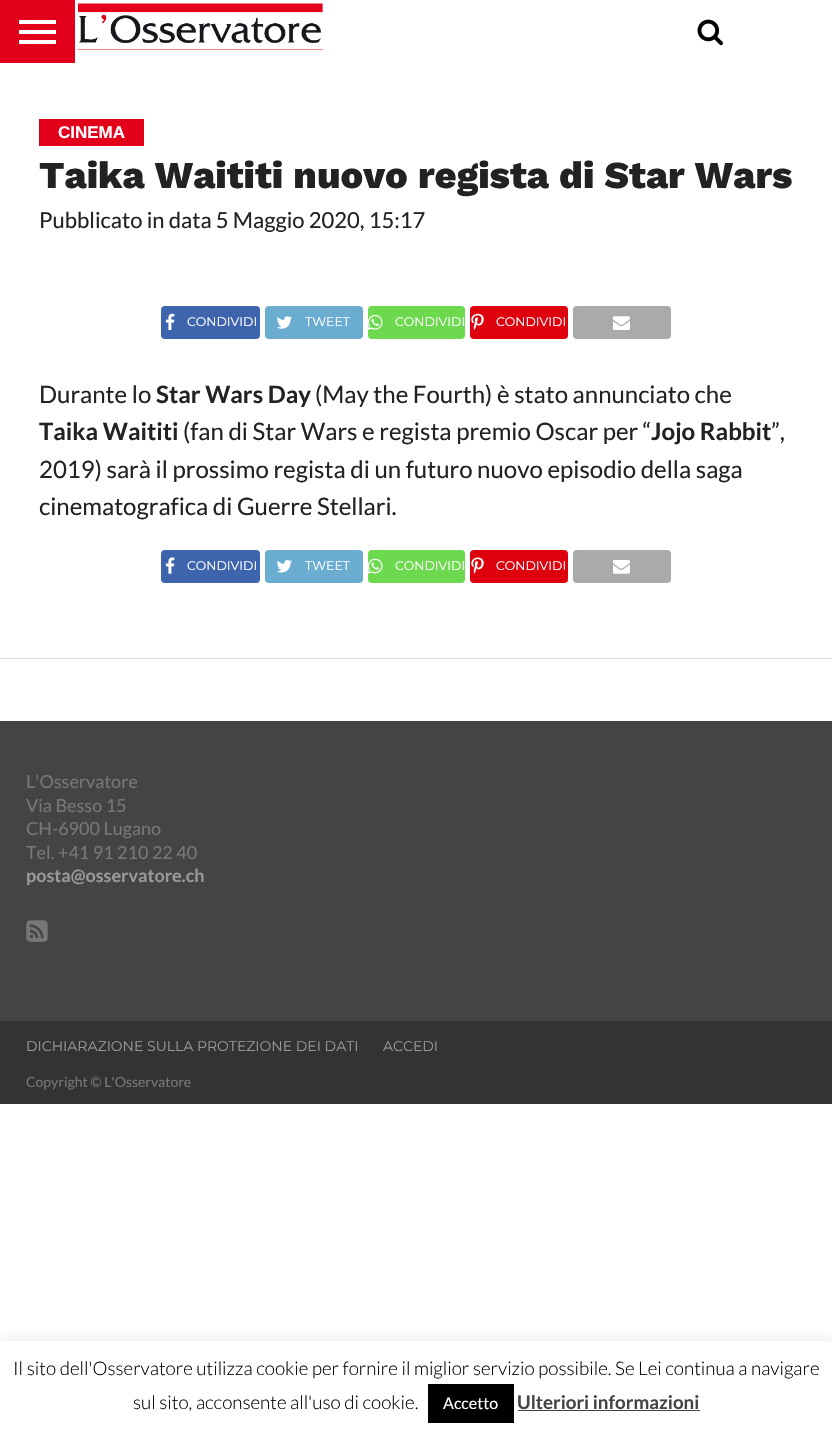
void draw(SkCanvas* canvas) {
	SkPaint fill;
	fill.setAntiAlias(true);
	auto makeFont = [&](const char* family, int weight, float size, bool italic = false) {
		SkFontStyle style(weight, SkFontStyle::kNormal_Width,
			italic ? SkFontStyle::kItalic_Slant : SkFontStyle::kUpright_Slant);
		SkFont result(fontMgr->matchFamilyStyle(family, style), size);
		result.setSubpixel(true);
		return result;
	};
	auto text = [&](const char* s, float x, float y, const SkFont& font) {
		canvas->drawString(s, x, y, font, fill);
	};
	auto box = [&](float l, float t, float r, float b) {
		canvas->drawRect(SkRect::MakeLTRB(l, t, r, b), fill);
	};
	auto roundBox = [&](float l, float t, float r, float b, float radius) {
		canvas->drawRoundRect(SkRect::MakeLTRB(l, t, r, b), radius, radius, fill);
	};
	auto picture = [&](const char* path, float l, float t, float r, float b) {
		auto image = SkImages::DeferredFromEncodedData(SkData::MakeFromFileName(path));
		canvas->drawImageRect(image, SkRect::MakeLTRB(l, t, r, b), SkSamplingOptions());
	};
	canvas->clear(0xFFFFFFFF);
	fill.setColor(0xFFE3001B);
	box(0, 0, 75, 63);
	fill.setColor(0xFFFFFFFF);
	box(19, 20, 56, 24);
	box(19, 30, 56, 34);
	box(19, 40, 56, 44);
	picture("image0.png", 77, 3, 323, 51);
	picture("image1.png", 697, 19, 723, 46);
	fill.setColor(0xFFDDDDDD);
	box(0, 658, 832, 659);
	fill.setColor(0xFFE3001B);
	box(39, 119, 144, 146);
	fill.setColor(0xFF3E64AD);
	roundBox(161, 306, 260, 339, 4);
	picture("image2.png", 165, 313, 175, 330);
	fill.setColor(0xFF6AADD1);
	roundBox(265, 306, 363, 339, 4);
	picture("image3.png", 276, 316, 292, 329);
	fill.setColor(0xFF6CD94E);
	roundBox(368, 306, 465, 339, 4);
	picture("image4.png", 368, 314, 383, 330);
	fill.setColor(0xFFDE010D);
	roundBox(470, 306, 568, 339, 4);
	picture("image5.png", 471, 313, 484, 330);
	fill.setColor(0xFFAAAAAA);
	roundBox(573, 306, 671, 339, 4);
	picture("image6.png", 613, 316, 630, 330);
	fill.setColor(0xFF3E64AD);
	roundBox(161, 550, 260, 583, 4);
	picture("image7.png", 165, 557, 175, 574);
	fill.setColor(0xFF6AADD1);
	roundBox(265, 550, 363, 583, 4);
	picture("image8.png", 276, 560, 292, 573);
	fill.setColor(0xFF6CD94E);
	roundBox(368, 550, 465, 583, 4);
	picture("image9.png", 368, 558, 383, 574);
	fill.setColor(0xFFDE010D);
	roundBox(470, 550, 568, 583, 4);
	picture("image10.png", 471, 557, 484, 574);
	fill.setColor(0xFFAAAAAA);
	roundBox(573, 550, 671, 583, 4);
	picture("image11.png", 613, 560, 630, 574);
	fill.setColor(0xFF444444);
	box(0, 721, 832, 1021);
	picture("image12.png", 26, 920, 48, 942);
	fill.setColor(0xFF333333);
	box(0, 1021, 832, 1104);
	fill.setColor(0x4DACABAB);
	fill.setMaskFilter(SkMaskFilter::MakeBlur(kNormal_SkBlurStyle, 6));
	canvas->drawRect(SkRect::MakeLTRB(0, 1340, 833, 1436), fill);
	fill.setMaskFilter(nullptr);
	fill.setColor(0xFFFFFFFF);
	box(0, 1341, 832, 1437);
	fill.setColor(0xFF000000);
	box(428, 1384, 514, 1423);
	fill.setColor(0xFF444444);
	box(518, 1410, 700, 1411);
	auto font1 = makeFont("Liberation Sans", 700, 17);
	fill.setColor(0xFFFFFFFF);
	text("CINEMA", 58, 138, font1);
	auto font2 = makeFont("Work Sans", 800, 38);
	fill.setColor(0xFF222222);
	text("Taika Waititi nuovo regista di Star Wars", 39, 188, font2);
	auto font3 = makeFont("Lato", 400, 22);
	text("Pubblicato in data 5 Maggio 2020, 15:17", 39, 228, font3);
	auto font4 = makeFont("Montserrat", 400, 12.5f);
	fill.setColor(0xFFFFFFFF);
	text("CONDIVIDI", 187, 326, font4);
	text("TWEET", 305, 326, font4);
	text("CONDIVIDI", 395, 326, font4);
	text("CONDIVIDI", 496, 326, font4);
	auto font5 = makeFont("Lato", 400, 24);
	fill.setColor(0xFF222222);
	text("Durante lo", 39, 403, font5);
	auto font6 = makeFont("Lato", 700, 24);
	text("Star Wars Day", 156, 403, font6);
	text("(May the Fourth) è stato annunciato che", 315, 403, font5);
	text("Taika Waititi", 39, 440, font6);
	text("(fan di Star Wars e regista premio Oscar per “", 183, 440, font5);
	text("Jojo Rabbit", 651, 440, font6);
	text("”,", 771, 440, font5);
	text("2019) sarà il prossimo regista di un futuro nuovo episodio della saga", 39, 478, font5);
	text("cinematografica di Guerre Stellari.", 39, 515, font5);
	fill.setColor(0xFFFFFFFF);
	text("CONDIVIDI", 187, 570, font4);
	text("TWEET", 305, 570, font4);
	text("CONDIVIDI", 395, 570, font4);
	text("CONDIVIDI", 496, 570, font4);
	auto font7 = makeFont("Lato", 400, 18);
	fill.setColor(0xFF777777);
	text("L'Osservatore", 26, 788, font7);
	text("Via Besso 15", 26, 812, font7);
	text("CH-6900 Lugano", 26, 835, font7);
	text("Tel. +41 91 210 22 40", 26, 859, font7);
	auto font8 = makeFont("Lato", 700, 18);
	fill.setColor(0xFF999999);
	text("posta@osservatore.ch", 26, 882, font8);
	auto font9 = makeFont("Montserrat", 400, 14);
	text("DICHIARAZIONE SULLA PROTEZIONE DEI DATI", 26, 1051, font9);
	text("ACCEDI", 383, 1051, font9);
	auto font10 = makeFont("Lato", 400, 14);
	fill.setColor(0xFF777777);
	text("Copyright © L'Osservatore", 26, 1087, font10);
	auto font11 = makeFont("Lato", 300, 18.75f);
	fill.setColor(0xFF000000);
	text("Il sito dell'Osservatore utilizza cookie per fornire il miglior servizio possibile. Se Lei continua a navigare", 13, 1375, font11);
	text("sul sito, acconsente all'uso di cookie.", 133, 1409, font11);
	auto font12 = makeFont("Lato", 400, 16);
	fill.setColor(0xFFFFFFFF);
	text("Accetto", 443, 1409, font12);
	auto font13 = makeFont("Lato", 700, 18.75f);
	fill.setColor(0xFF444444);
	text("Ulteriori informazioni", 517, 1409, font13);
}
